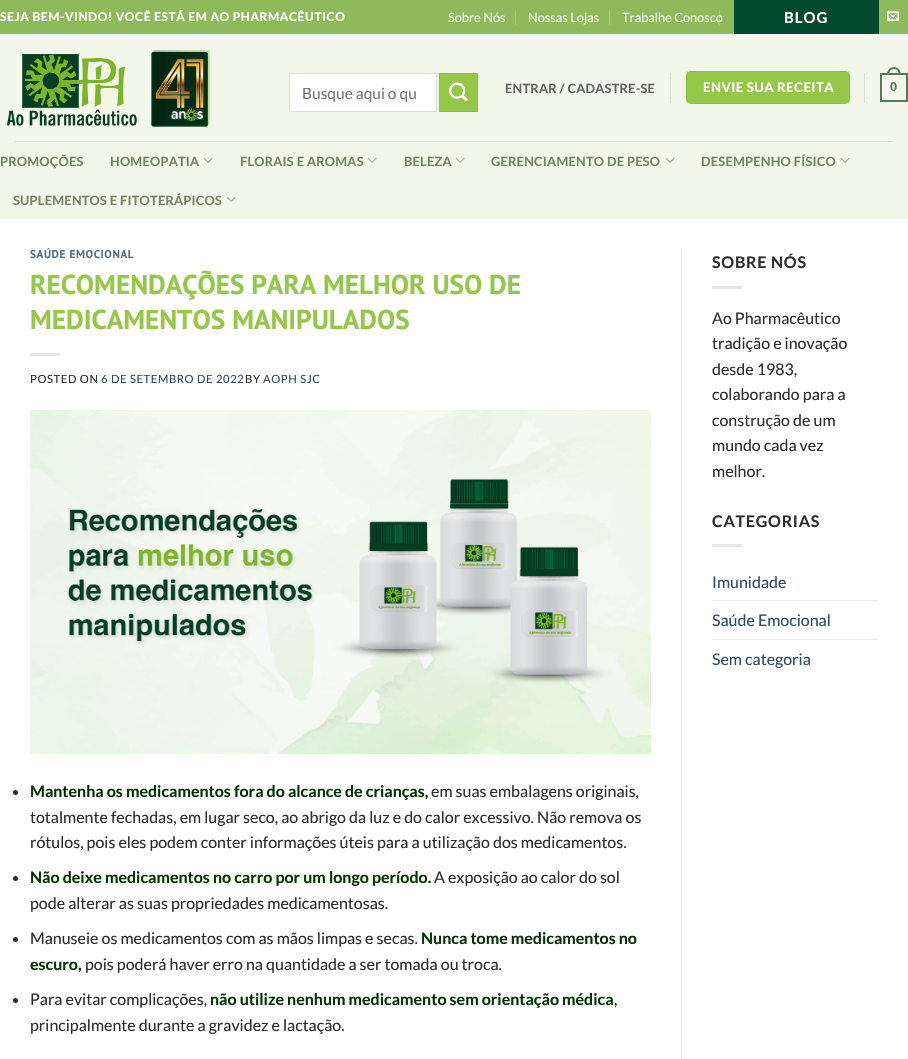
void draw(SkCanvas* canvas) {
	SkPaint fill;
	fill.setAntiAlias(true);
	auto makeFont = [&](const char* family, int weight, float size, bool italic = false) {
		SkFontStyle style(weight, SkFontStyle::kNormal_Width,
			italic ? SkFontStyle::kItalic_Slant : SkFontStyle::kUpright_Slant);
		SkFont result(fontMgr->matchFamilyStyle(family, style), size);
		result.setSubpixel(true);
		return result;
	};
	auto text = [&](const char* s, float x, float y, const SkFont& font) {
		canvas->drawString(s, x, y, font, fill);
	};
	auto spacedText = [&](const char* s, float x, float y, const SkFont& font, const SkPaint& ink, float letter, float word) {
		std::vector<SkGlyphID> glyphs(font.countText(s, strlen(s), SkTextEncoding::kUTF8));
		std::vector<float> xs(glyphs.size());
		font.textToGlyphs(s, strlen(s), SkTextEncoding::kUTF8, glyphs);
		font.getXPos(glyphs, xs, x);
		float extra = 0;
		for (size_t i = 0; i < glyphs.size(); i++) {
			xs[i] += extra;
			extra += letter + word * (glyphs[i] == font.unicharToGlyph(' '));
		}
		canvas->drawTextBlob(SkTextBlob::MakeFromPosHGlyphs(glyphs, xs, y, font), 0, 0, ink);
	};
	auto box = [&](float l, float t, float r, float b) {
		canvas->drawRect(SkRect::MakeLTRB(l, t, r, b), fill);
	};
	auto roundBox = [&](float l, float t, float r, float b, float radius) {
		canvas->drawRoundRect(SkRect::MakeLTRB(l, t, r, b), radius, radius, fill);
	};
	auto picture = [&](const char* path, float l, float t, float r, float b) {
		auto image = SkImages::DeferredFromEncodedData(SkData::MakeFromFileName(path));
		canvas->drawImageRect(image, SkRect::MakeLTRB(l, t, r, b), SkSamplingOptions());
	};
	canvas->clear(0xFFFFFFFF);
	fill.setColor(0xFF8EBA5B);
	box(0, 0, 908, 34);
	fill.setColor(0xFFA5C87C);
	box(515, 10, 516, 25);
	box(609, 10, 610, 25);
	fill.setColor(0xFF034A30);
	box(734, 0, 879, 34);
	picture("image0.png", 887, 11, 899, 21);
	fill.setColor(0xFFF2F7EA);
	box(0, 34, 908, 219);
	picture("image1.png", 6, 49, 210, 127);
	fill.setColor(0xFFFFFFFF);
	canvas->drawRect(SkRect::MakeLTRB(289.5f, 73.5f, 436.5f, 111.5f), fill);
	fill.setStyle(SkPaint::kStroke_Style);
	fill.setStrokeWidth(1);
	fill.setColor(0xFFDDDDDD);
	canvas->drawRect(SkRect::MakeLTRB(289.5f, 73.5f, 436.5f, 111.5f), fill);
	fill.setStyle(SkPaint::kFill_Style);
	fill.setColor(0xFF95C749);
	canvas->drawRect(SkRect::MakeLTRB(439.5f, 73.5f, 477.5f, 111.5f), fill);
	fill.setStyle(SkPaint::kStroke_Style);
	fill.setColor(0xFF8EBD45);
	canvas->drawRect(SkRect::MakeLTRB(439.5f, 73.5f, 477.5f, 111.5f), fill);
	picture("image2.png", 449, 82, 468, 102);
	fill.setStyle(SkPaint::kFill_Style);
	fill.setColor(0xFFDADED3);
	box(670, 73, 671, 103);
	fill.setColor(0xFF95C749);
	roundBox(686, 71, 850, 104, 5);
	fill.setStyle(SkPaint::kStroke_Style);
	fill.setColor(0x0D000000);
	canvas->drawRect(SkRect::MakeLTRB(686.5f, 71.5f, 849.5f, 103.5f), fill);
	fill.setStyle(SkPaint::kFill_Style);
	fill.setColor(0xFFDADED3);
	box(864, 73, 865, 103);
	fill.setStyle(SkPaint::kStroke_Style);
	fill.setStrokeWidth(2);
	fill.setColor(0xFF507C5C);
	canvas->drawRect(SkRect::MakeLTRB(881, 74, 907, 101), fill);
	fill.setStyle(SkPaint::kFill_Style);
	canvas->drawPath(SkPathBuilder(SkPathFillType::kEvenOdd).moveTo(894, 67).cubicTo(898.5f, 67, 901, 71, 901, 75).lineTo(887, 75).cubicTo(887, 71, 889.5f, 67, 894, 67).close().moveTo(894, 69).cubicTo(897.5f, 69, 899, 72, 899, 75).lineTo(889, 75).cubicTo(889, 72, 890.5f, 69, 894, 69).close().detach(), fill);
	fill.setColor(0xFFDEE3D7);
	box(15, 141, 893, 142);
	picture("image3.png", 203, 157, 213, 163);
	picture("image3.png", 367, 157, 377, 163);
	picture("image3.png", 455, 157, 465, 163);
	picture("image3.png", 665, 157, 675, 163);
	picture("image3.png", 840, 157, 850, 163);
	picture("image3.png", 226, 196, 236, 202);
	fill.setColor(0xFFE6E6E6);
	box(30, 353, 60, 356);
	picture("image4.png", 30, 410, 651, 754);
	fill.setColor(0xFF2C2D2F);
	canvas->drawCircle(15.5f, 792.5f, 2.5f, fill);
	canvas->drawCircle(15.5f, 878.5f, 2.5f, fill);
	canvas->drawCircle(15.5f, 939.5f, 2.5f, fill);
	canvas->drawCircle(15.5f, 1000.5f, 2.5f, fill);
	fill.setColor(0xFFECECEC);
	box(681, 249, 682, 1059);
	fill.setColor(0xFFE6E6E6);
	box(712, 286, 742, 289);
	box(712, 544, 742, 547);
	fill.setColor(0xFFECECEC);
	box(712, 600, 878, 601);
	box(712, 639, 878, 640);
	auto font1 = makeFont("Lato", 700, 12);
	fill.setColor(0xFFFFFFFF);
	spacedText("SEJA BEM-VINDO! VOCÊ ESTÁ EM AO PHARMACÊUTICO", 0, 21, font1, fill, 0.6f, 0);
	auto font2 = makeFont("Lato", 400, 12.75f);
	fill.setColor(0xFFE8F1DE);
	text("Sobre Nós", 448, 22, font2);
	text("Nossas Lojas", 528, 22, font2);
	text("Trabalhe Conosco", 622, 22, font2);
	fill.setColor(0x33FFFFFF);
	box(719, 10, 720, 25);
	auto font3 = makeFont("Lato", 700, 15);
	fill.setColor(0xFFFFFFFF);
	spacedText("BLOG", 784, 23, font3, fill, 1, 0);
	auto font4 = makeFont("Lato", 400, 15.5f);
	fill.setColor(0xFF757575);
	text("Busque aqui o qu", 302, 99, font4);
	auto font5 = makeFont("Lato", 700, 12.75f);
	fill.setColor(0xFF636462);
	spacedText("ENTRAR / CADASTRE-SE", 505, 93, font5, fill, 0.25f, 0);
	auto font6 = makeFont("Lato", 700, 13.25f);
	fill.setColor(0xFFFFFFFF);
	spacedText("ENVIE SUA RECEITA", 703, 92, font6, fill, 0.4f, 0);
	auto font7 = makeFont("Liberation Sans", 700, 12.75f);
	fill.setColor(0xFF507C5C);
	spacedText("0", 890, 91, font7, fill, 0.25f, 0);
	fill.setColor(0xFF728461);
	spacedText("PROMOÇÕES", 0, 166, font5, fill, 0.25f, 0);
	spacedText("HOMEOPATIA", 110, 166, font5, fill, 0.25f, 0);
	spacedText("FLORAIS E AROMAS", 240, 166, font5, fill, 0.25f, 0);
	spacedText("BELEZA", 404, 166, font5, fill, 0.25f, 0);
	spacedText("GERENCIAMENTO DE PESO", 491, 166, font5, fill, 0.25f, 0);
	spacedText("DESEMPENHO FÍSICO", 701, 166, font5, fill, 0.25f, 0);
	spacedText("SUPLEMENTOS E FITOTERÁPICOS", 13, 205, font5, fill, 0.25f, 0);
	auto font8 = makeFont("PT Sans", 700, 11.25f);
	fill.setColor(0xFF5C6D81);
	spacedText("SAÚDE EMOCIONAL", 30, 258, font8, fill, 0.6f, 0);
	auto font9 = makeFont("PT Sans", 700, 27.25f);
	fill.setColor(0xFF95C749);
	text("RECOMENDAÇÕES PARA MELHOR USO DE", 30, 294, font9);
	text("MEDICAMENTOS MANIPULADOS", 30, 329, font9);
	auto font10 = makeFont("Lato", 400, 11.25f);
	fill.setColor(0xFF2C2D2F);
	spacedText("POSTED ON", 30, 383, font10, fill, 0.6f, 0);
	fill.setColor(0xFF334862);
	spacedText("6 DE SETEMBRO DE 2022", 101, 383, font10, fill, 0.6f, 0);
	fill.setColor(0xFF2C2D2F);
	spacedText("BY", 245, 383, font10, fill, 0.6f, 0);
	fill.setColor(0xFF334862);
	spacedText("AOPH SJC", 263, 383, font10, fill, 0.6f, 0);
	auto font11 = makeFont("Lato", 700, 16);
	fill.setColor(0xFF003300);
	text("Mantenha os medicamentos fora do alcance de crianças,", 30, 797, font11);
	auto font12 = makeFont("Lato", 400, 16);
	fill.setColor(0xFF2C2D2F);
	text("em suas embalagens originais,", 431, 797, font12);
	text("totalmente fechadas, em lugar seco, ao abrigo da luz e do calor excessivo. Não remova os", 30, 823, font12);
	text("rótulos, pois eles podem conter informações úteis para a utilização dos medicamentos.", 30, 848, font12);
	fill.setColor(0xFF003300);
	text("Não deixe medicamentos no carro por um longo período.", 30, 883, font11);
	fill.setColor(0xFF2C2D2F);
	text("A exposição ao calor do sol", 434, 883, font12);
	text("pode alterar as suas propriedades medicamentosas.", 30, 909, font12);
	text("Manuseie os medicamentos com as mãos limpas e secas.", 30, 944, font12);
	fill.setColor(0xFF003300);
	text("Nunca tome medicamentos no", 421, 944, font11);
	text("escuro,", 30, 970, font11);
	fill.setColor(0xFF2C2D2F);
	text("pois poderá haver erro na quantidade a ser tomada ou troca.", 85, 970, font12);
	text("Para evitar complicações,", 30, 1005, font12);
	fill.setColor(0xFF003300);
	text("não utilize nenhum medicamento sem orientação médica", 210, 1005, font11);
	text(",", 614, 1005, font12);
	fill.setColor(0xFF2C2D2F);
	text("principalmente durante a gravidez e lactação.", 30, 1031, font12);
	spacedText("SOBRE NÓS", 712, 268, font11, fill, 0.75f, 0);
	text("Ao Pharmacêutico", 712, 324, font12);
	text("tradição e inovação", 712, 349, font12);
	text("desde 1983,", 712, 375, font12);
	text("colaborando para a", 712, 400, font12);
	text("construção de um", 712, 426, font12);
	text("mundo cada vez", 712, 451, font12);
	text("melhor.", 712, 477, font12);
	spacedText("CATEGORIAS", 712, 527, font11, fill, 0.75f, 0);
	fill.setColor(0xFF334862);
	text("Imunidade", 712, 588, font12);
	text("Saúde Emocional", 712, 626, font12);
	text("Sem categoria", 712, 665, font12);
}
